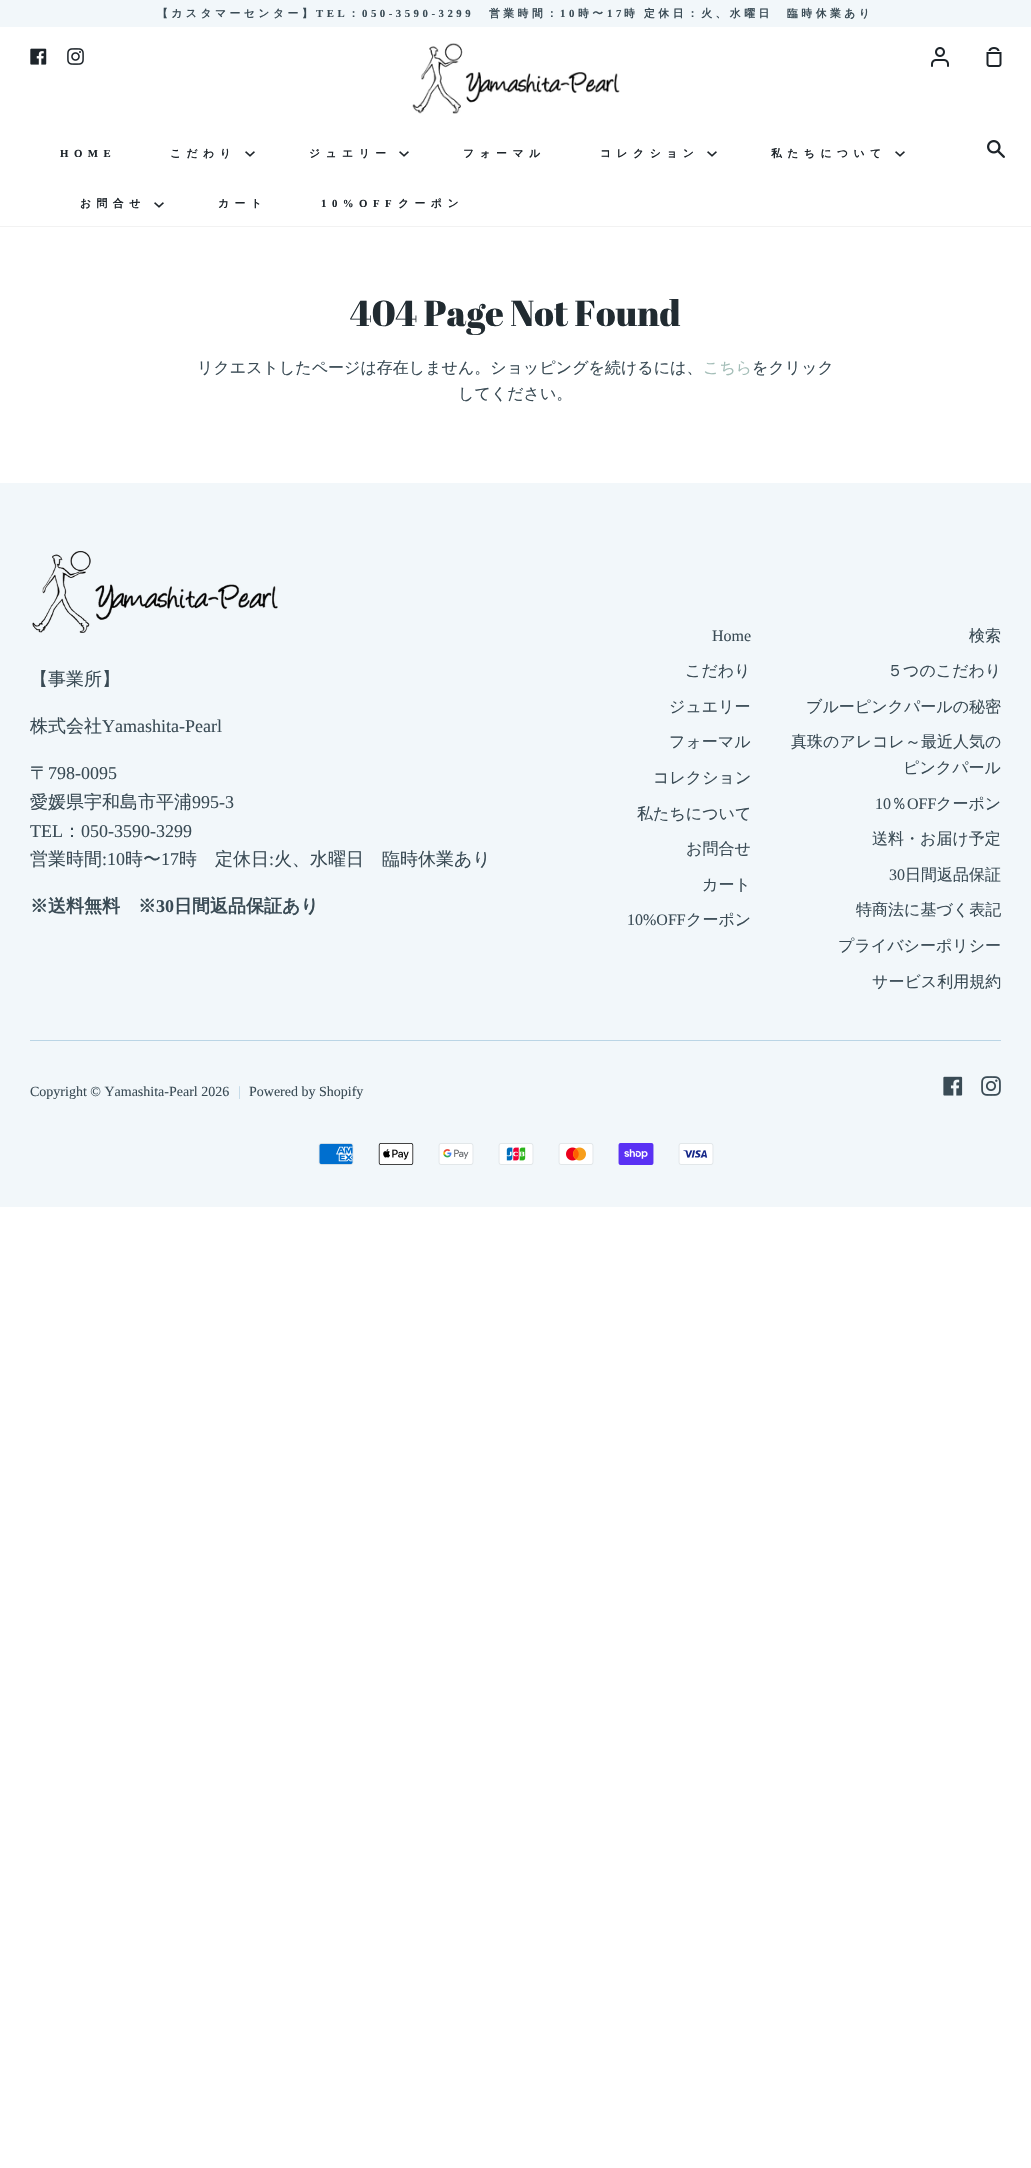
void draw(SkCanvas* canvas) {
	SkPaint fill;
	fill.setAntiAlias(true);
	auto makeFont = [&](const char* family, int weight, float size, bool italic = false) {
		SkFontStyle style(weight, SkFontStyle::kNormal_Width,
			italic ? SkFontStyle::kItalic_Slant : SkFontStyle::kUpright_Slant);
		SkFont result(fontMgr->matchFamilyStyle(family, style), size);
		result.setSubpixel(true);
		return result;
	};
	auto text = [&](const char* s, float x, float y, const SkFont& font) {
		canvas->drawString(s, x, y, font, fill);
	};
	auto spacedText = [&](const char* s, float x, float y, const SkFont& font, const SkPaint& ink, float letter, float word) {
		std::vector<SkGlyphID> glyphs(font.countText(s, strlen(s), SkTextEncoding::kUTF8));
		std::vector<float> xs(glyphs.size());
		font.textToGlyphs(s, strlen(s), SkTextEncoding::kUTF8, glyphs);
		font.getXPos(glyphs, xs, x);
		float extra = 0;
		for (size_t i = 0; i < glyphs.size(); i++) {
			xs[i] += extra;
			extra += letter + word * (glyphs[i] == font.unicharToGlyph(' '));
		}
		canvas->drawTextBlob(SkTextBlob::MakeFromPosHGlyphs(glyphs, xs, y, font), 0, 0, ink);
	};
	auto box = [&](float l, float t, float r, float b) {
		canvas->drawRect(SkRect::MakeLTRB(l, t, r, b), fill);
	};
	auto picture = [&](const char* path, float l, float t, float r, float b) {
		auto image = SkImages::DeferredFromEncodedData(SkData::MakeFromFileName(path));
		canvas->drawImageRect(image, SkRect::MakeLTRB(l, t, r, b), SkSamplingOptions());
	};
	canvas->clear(0xFFFFFFFF);
	fill.setColor(0xFFF2F7FA);
	box(0, 0, 1031, 27);
	fill.setColor(0xFFF2F2F2);
	box(0, 226, 1031, 227);
	picture("image0.png", 30, 48, 47, 65);
	picture("image1.png", 67, 48, 84, 65);
	picture("image2.png", 412, 43, 620, 114);
	picture("image3.png", 931, 47, 949, 67);
	picture("image4.png", 986, 47, 1002, 67);
	picture("image5.png", 245, 151, 255, 157);
	picture("image5.png", 399, 151, 409, 157);
	picture("image5.png", 707, 151, 717, 157);
	picture("image5.png", 895, 151, 905, 157);
	picture("image5.png", 154, 202, 164, 208);
	picture("image6.png", 987, 140, 1005, 158);
	fill.setColor(0xFFF2F7FA);
	box(0, 483, 1031, 1207);
	picture("image7.png", 32, 550, 278, 633);
	fill.setColor(0xFFBBD5E5);
	box(30, 1040, 1001, 1041);
	picture("image8.png", 943, 1076, 963, 1096);
	picture("image9.png", 981, 1076, 1001, 1096);
	picture("image10.png", 318, 1143, 354, 1165);
	picture("image11.png", 378, 1143, 414, 1165);
	picture("image12.png", 438, 1143, 474, 1165);
	picture("image13.png", 498, 1143, 534, 1165);
	picture("image14.png", 558, 1143, 594, 1165);
	picture("image15.png", 618, 1143, 654, 1165);
	picture("image16.png", 678, 1143, 714, 1165);
	auto font1 = makeFont("WenQuanYi Zen Hei", 700, 10.8f);
	fill.setColor(0xFF3A4B55);
	spacedText("【カスタマーセンター】", 157, 17, font1, fill, 3.5f, 0);
	auto font2 = makeFont("Liberation Serif", 700, 10.8f);
	spacedText("TEL", 316, 17, font2, fill, 3.5f, 0);
	spacedText("：", 348, 17, font1, fill, 3.5f, 0);
	spacedText("050-3590-3299", 362, 17, font2, fill, 3.5f, 0);
	spacedText("営業時間：", 489, 17, font1, fill, 3.5f, 0);
	spacedText("10", 560, 17, font2, fill, 3.5f, 0);
	spacedText("時〜", 578, 17, font1, fill, 3.5f, 0);
	spacedText("17", 607, 17, font2, fill, 3.5f, 0);
	spacedText("時 定休日：火、水曜日　臨時休業あり", 624, 17, font1, fill, 3.5f, -1);
	fill.setColor(0xFF1D242A);
	spacedText("HOME", 60, 157, font2, fill, 5.5f, 0);
	spacedText("こだわり", 170, 157, font1, fill, 5.5f, 0);
	spacedText("ジュエリー", 309, 157, font1, fill, 5.5f, 0);
	spacedText("フォーマル", 463, 157, font1, fill, 5.5f, 0);
	spacedText("コレクション", 600, 157, font1, fill, 5.5f, 0);
	spacedText("私たちについて", 771, 157, font1, fill, 5.5f, 0);
	spacedText("お問合せ", 80, 207, font1, fill, 5.5f, 0);
	spacedText("カート", 218, 207, font1, fill, 5.5f, 0);
	spacedText("10%OFF", 321, 207, font2, fill, 5.5f, 0);
	spacedText("クーポン", 398, 207, font1, fill, 5.5f, 0);
	auto font3 = makeFont("Abril Fatface", 400, 36);
	fill.setColor(0xFF212B31);
	text("404 Page Not Found", 350, 326, font3);
	auto font4 = makeFont("WenQuanYi Zen Hei", 500, 16);
	fill.setColor(0xFF3A4B55);
	text("リクエストしたページは存在しません。ショッピングを続けるには、", 197, 373, font4);
	fill.setColor(0xFFA4BEB8);
	text("こちら", 703, 373, font4);
	fill.setColor(0xFF3A4B55);
	text("をクリック", 752, 373, font4);
	text("してください。", 458, 399, font4);
	auto font5 = makeFont("WenQuanYi Zen Hei", 500, 18);
	text("【事業所】", 30, 685, font5);
	text("株式会社", 30, 732, font5);
	auto font6 = makeFont("Liberation Serif", 400, 18);
	text("Yamashita-Pearl", 102, 732, font6);
	text("〒", 30, 779, font5);
	text("798-0095", 48, 779, font6);
	text("愛媛県宇和島市平浦", 30, 808, font5);
	text("995-3", 192, 808, font6);
	text("TEL", 30, 837, font6);
	text("：", 63, 837, font5);
	text("050-3590-3299", 81, 837, font6);
	text("営業時間", 30, 865, font5);
	text(":10", 102, 865, font6);
	text("時〜", 125, 865, font5);
	text("17", 161, 865, font6);
	text("時　定休日", 179, 865, font5);
	text(":", 269, 865, font6);
	text("火、水曜日　臨時休業あり", 274, 865, font5);
	auto font7 = makeFont("WenQuanYi Zen Hei", 700, 18);
	text("※送料無料　※", 30, 912, font7);
	auto font8 = makeFont("Liberation Serif", 700, 18);
	text("30", 156, 912, font8);
	text("日間返品保証あり", 174, 912, font7);
	auto font9 = makeFont("Liberation Serif", 400, 16);
	text("Home", 712, 641, font9);
	text("こだわり", 685, 676, font4);
	text("ジュエリー", 669, 712, font4);
	text("フォーマル", 669, 747, font4);
	text("コレクション", 653, 783, font4);
	text("私たちについて", 637, 819, font4);
	text("お問合せ", 686, 854, font4);
	text("カート", 702, 890, font4);
	text("10%OFF", 627, 925, font9);
	text("クーポン", 686, 925, font4);
	text("検索", 969, 641, font4);
	text("５つのこだわり", 887, 676, font4);
	text("ブルーピンクパールの秘密", 806, 712, font4);
	text("真珠のアレコレ～最近人気の", 791, 747, font4);
	text("ピンクパール", 903, 773, font4);
	text("10", 875, 809, font9);
	text("％", 891, 809, font4);
	text("OFF", 907, 809, font9);
	text("クーポン", 936, 809, font4);
	text("送料・お届け予定", 872, 844, font4);
	text("30", 889, 880, font9);
	text("日間返品保証", 905, 880, font4);
	text("特商法に基づく表記", 856, 915, font4);
	text("プライバシーポリシー", 838, 951, font4);
	text("サービス利用規約", 872, 987, font4);
	auto font10 = makeFont("Liberation Serif", 400, 14);
	text("Copyright © Yamashita-Pearl 2026", 30, 1096, font10);
	fill.setColor(0xFFBBD5E5);
	text("|", 238, 1096, font10);
	fill.setColor(0xFF3A4B55);
	text("Powered by Shopify", 249, 1096, font10);
}
